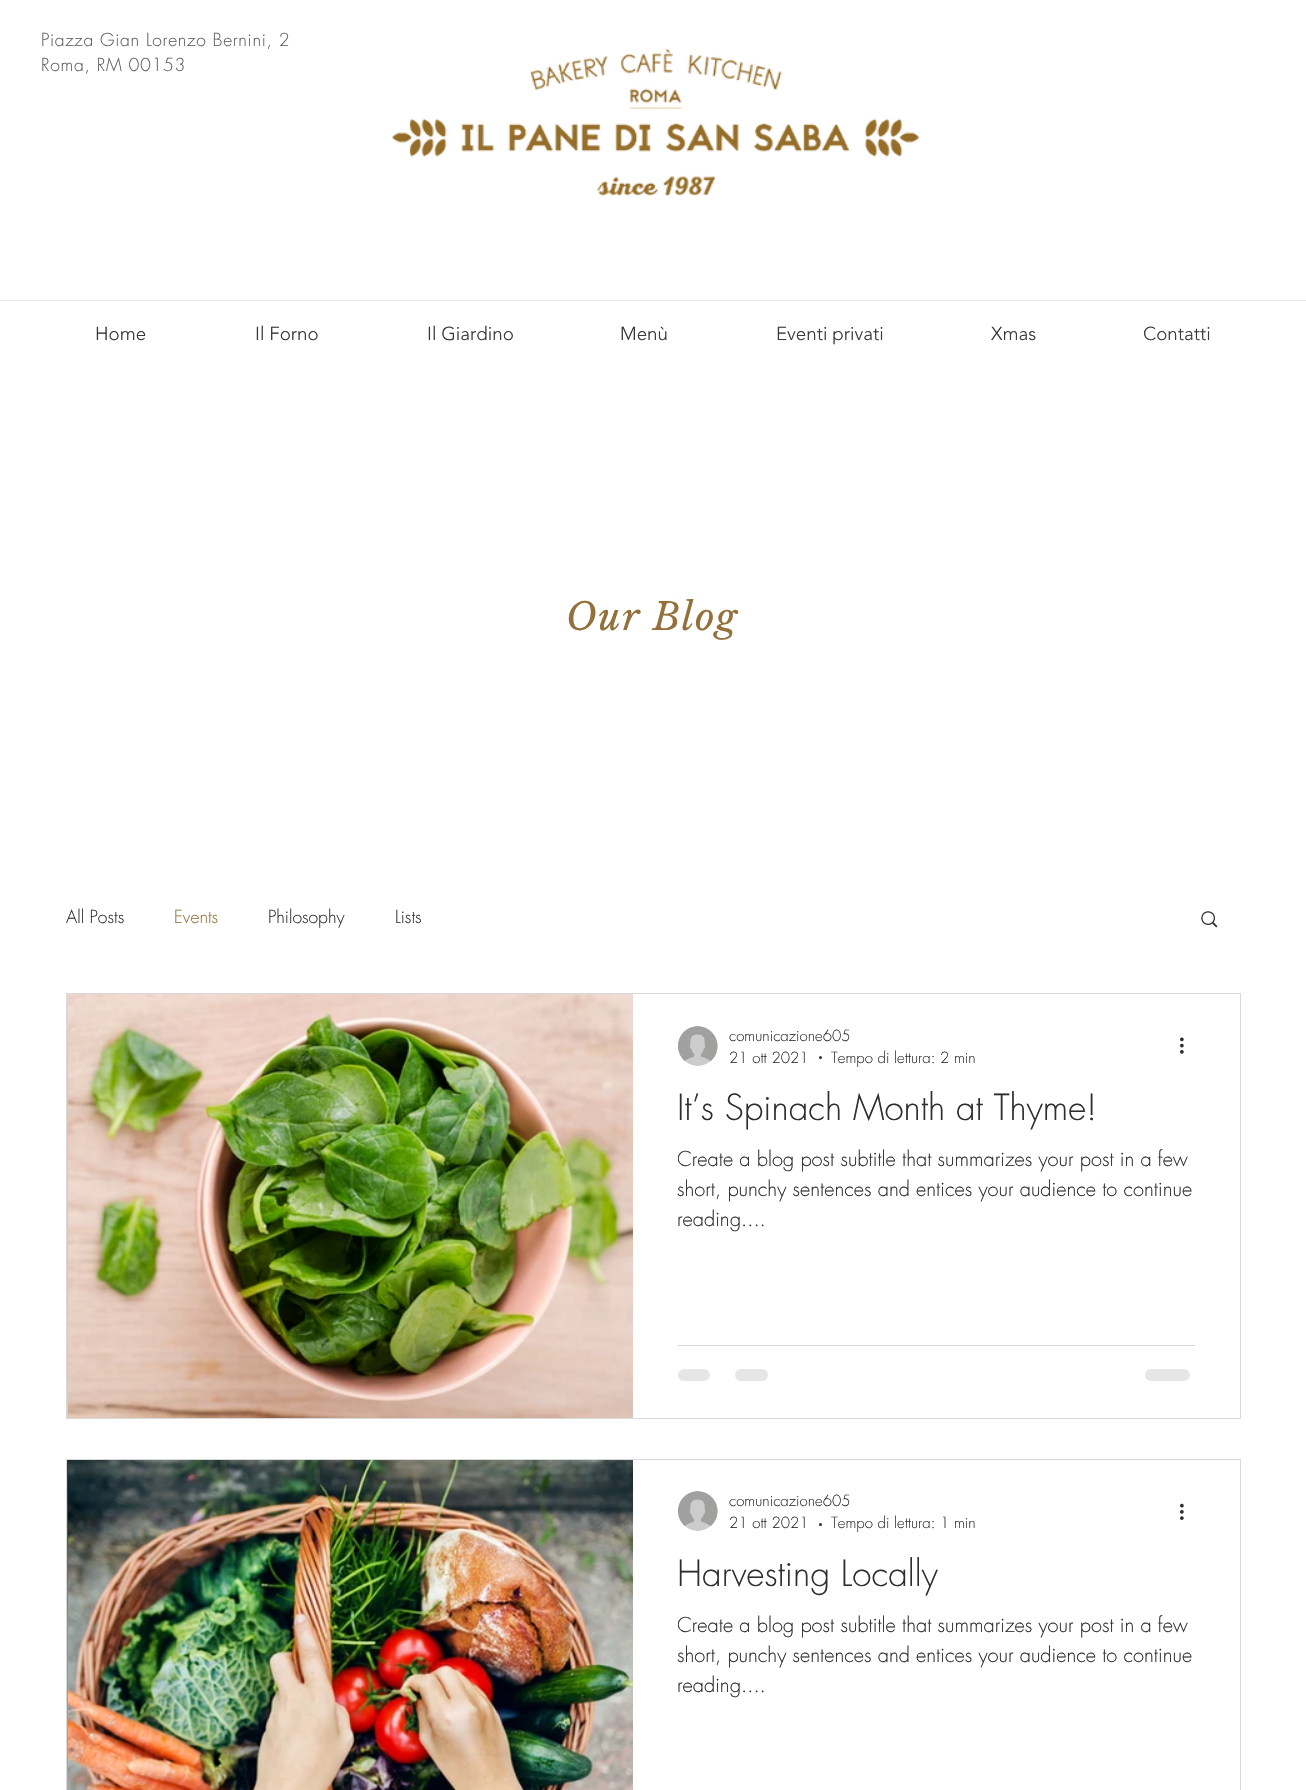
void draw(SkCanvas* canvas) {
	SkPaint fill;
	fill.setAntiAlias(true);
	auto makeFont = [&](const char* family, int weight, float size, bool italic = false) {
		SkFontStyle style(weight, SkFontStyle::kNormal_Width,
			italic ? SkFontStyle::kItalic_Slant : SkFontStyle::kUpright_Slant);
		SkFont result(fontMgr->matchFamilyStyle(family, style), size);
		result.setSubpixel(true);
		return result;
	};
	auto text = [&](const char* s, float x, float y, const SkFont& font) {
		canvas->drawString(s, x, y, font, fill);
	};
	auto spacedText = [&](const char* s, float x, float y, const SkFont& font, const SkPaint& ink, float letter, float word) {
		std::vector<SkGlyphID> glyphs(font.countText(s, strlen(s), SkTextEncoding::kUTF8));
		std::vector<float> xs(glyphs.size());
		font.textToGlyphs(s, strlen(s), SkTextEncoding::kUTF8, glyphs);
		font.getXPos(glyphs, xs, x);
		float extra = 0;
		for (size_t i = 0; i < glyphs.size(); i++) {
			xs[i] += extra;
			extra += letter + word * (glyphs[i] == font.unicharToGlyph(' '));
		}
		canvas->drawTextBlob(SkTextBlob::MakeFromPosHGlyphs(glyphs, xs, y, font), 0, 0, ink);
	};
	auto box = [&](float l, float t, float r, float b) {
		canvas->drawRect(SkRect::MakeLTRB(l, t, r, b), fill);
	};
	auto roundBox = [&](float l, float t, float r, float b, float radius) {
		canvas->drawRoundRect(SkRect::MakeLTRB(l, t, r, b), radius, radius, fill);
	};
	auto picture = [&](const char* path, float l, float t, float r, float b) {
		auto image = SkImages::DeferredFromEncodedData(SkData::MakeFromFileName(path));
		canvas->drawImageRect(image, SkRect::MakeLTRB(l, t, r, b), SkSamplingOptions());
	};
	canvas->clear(0xFFFFFFFF);
	picture("image0.png", 392, 48, 920, 197);
	fill.setColor(0xFFE9E9E9);
	box(0, 300, 1306, 301);
	picture("image1.png", 1201, 911, 1218, 928);
	fill.setStyle(SkPaint::kStroke_Style);
	fill.setStrokeWidth(1);
	fill.setColor(0xFFD9D9D9);
	canvas->drawRect(SkRect::MakeLTRB(66.5f, 993.5f, 1240.5f, 1418.5f), fill);
	picture("image2.png", 67, 994, 68, 1418);
	picture("image3.png", 68, 994, 633, 1418);
	picture("image4.png", 678, 1026, 718, 1066);
	fill.setStyle(SkPaint::kFill_Style);
	fill.setColor(0xFF2F2E2E);
	canvas->drawCircle(820.5f, 1057.5f, 1.5f, fill);
	picture("image5.png", 1180, 1037, 1184, 1054);
	fill.setColor(0xFFD5D5D5);
	box(678, 1345, 1195, 1346);
	fill.setColor(0xFFE6E6E6);
	roundBox(678, 1369, 710, 1381, 6);
	roundBox(735, 1369, 768, 1381, 6);
	roundBox(1145, 1369, 1190, 1381, 6);
	fill.setStyle(SkPaint::kStroke_Style);
	fill.setColor(0xFFD9D9D9);
	canvas->drawRect(SkRect::MakeLTRB(66.5f, 1459.5f, 1240.5f, 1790.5f), fill);
	picture("image6.png", 67, 1460, 68, 1790);
	picture("image7.png", 68, 1460, 633, 1790);
	picture("image4.png", 678, 1491, 718, 1531);
	fill.setStyle(SkPaint::kFill_Style);
	fill.setColor(0xFF2F2E2E);
	canvas->drawCircle(820.5f, 1524.5f, 1.5f, fill);
	picture("image8.png", 1180, 1503, 1184, 1520);
	auto font1 = makeFont("futura", 300, 17.5f);
	fill.setColor(0xFF605E5E);
	spacedText("Piazza Gian Lorenzo Bernini, 2", 41, 46, font1, fill, 0.7f, 0);
	spacedText("Roma, RM 00153", 41, 71, font1, fill, 0.7f, 0);
	auto font2 = makeFont("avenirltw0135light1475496", 300, 18.75f);
	fill.setColor(0xFF383838);
	text("Home", 95, 340, font2);
	text("Il Forno", 255, 340, font2);
	text("Il Giardino", 427, 340, font2);
	text("Menù", 620, 340, font2);
	text("Eventi privati", 776, 340, font2);
	text("Xmas", 991, 340, font2);
	text("Contatti", 1143, 340, font2);
	auto font3 = makeFont("Libre Baskerville", 400, 37.5f, true);
	fill.setColor(0xFF94703A);
	spacedText("Our Blog", 566, 630, font3, fill, 1.5f, 0);
	fill.setColor(0xFF2F2E2E);
	text("All Posts", 66, 923, font1);
	fill.setColor(0xFF94703A);
	text("Events", 174, 923, font1);
	fill.setColor(0xFF2F2E2E);
	text("Philosophy", 268, 923, font1);
	text("Lists", 395, 923, font1);
	auto font4 = makeFont("futura", 300, 15);
	text("comunicazione605", 729, 1041, font4);
	text("21 ott 2021", 729, 1063, font4);
	text("Tempo di lettura: 2 min", 831, 1063, font4);
	auto font5 = makeFont("futura", 300, 35);
	text("It’s Spinach Month at Thyme!", 677, 1120, font5);
	canvas->save();
	canvas->clipRect(SkRect::MakeLTRB(678, 1145, 1195, 1235));
	auto font6 = makeFont("futura", 300, 20);
	text("Create a blog post subtitle that summarizes your post in a few", 677, 1166, font6);
	canvas->restore();
	text("short, punchy sentences and entices your audience to continue", 677, 1196, font6);
	text("reading....", 677, 1226, font6);
	text("comunicazione605", 729, 1506, font4);
	text("21 ott 2021", 729, 1528, font4);
	text("Tempo di lettura: 1 min", 831, 1528, font4);
	text("Harvesting Locally", 677, 1586, font5);
	canvas->save();
	canvas->clipRect(SkRect::MakeLTRB(678, 1611, 1195, 1701));
	text("Create a blog post subtitle that summarizes your post in a few", 677, 1632, font6);
	canvas->restore();
	text("short, punchy sentences and entices your audience to continue", 677, 1662, font6);
	text("reading....", 677, 1692, font6);
}
